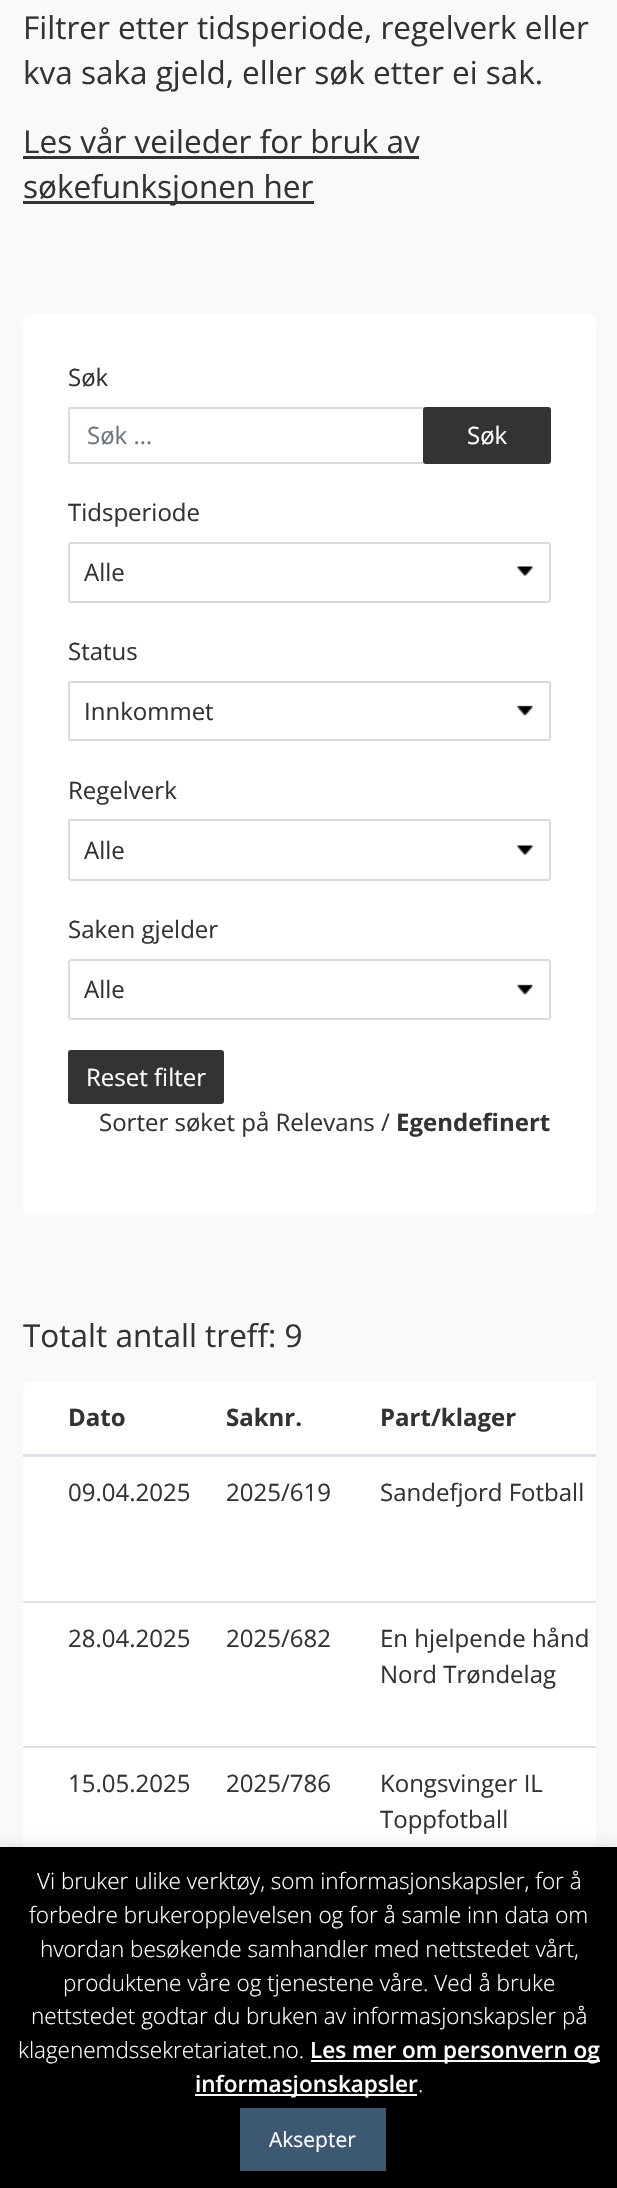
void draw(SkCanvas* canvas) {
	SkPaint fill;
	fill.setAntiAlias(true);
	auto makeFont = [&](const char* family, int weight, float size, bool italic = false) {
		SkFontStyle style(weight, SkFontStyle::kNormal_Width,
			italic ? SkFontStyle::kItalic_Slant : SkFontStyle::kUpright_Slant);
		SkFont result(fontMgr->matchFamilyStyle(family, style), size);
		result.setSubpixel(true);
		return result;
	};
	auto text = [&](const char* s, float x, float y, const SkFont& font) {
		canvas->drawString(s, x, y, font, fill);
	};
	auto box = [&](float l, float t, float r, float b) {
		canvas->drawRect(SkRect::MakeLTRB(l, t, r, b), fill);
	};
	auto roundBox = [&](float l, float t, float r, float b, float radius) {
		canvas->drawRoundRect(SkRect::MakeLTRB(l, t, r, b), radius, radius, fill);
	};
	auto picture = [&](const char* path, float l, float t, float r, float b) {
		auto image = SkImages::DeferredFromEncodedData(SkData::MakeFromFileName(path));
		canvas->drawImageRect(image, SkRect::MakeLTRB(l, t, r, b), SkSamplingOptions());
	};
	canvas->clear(0xFFF9F9F9);
	fill.setColor(0xFF333333);
	box(23, 156, 419, 159);
	box(23, 201, 314, 204);
	fill.setColor(0xFFFFFFFF);
	roundBox(23, 314, 596, 1215, 8);
	fill.setStyle(SkPaint::kStroke_Style);
	fill.setStrokeWidth(2);
	fill.setColor(0xFFDADADA);
	canvas->drawRoundRect(SkRect::MakeLTRB(69, 408, 424, 463), 0.5f, 0.5f, fill);
	fill.setStyle(SkPaint::kFill_Style);
	fill.setColor(0xFF333333);
	roundBox(423, 407, 551, 464, 3);
	picture("image0.png", 517, 566, 533, 576);
	fill.setStyle(SkPaint::kStroke_Style);
	fill.setColor(0xFFD9DBDB);
	canvas->drawRoundRect(SkRect::MakeLTRB(69, 543, 550, 602), 2, 2, fill);
	picture("image1.png", 517, 705, 533, 716);
	canvas->drawRoundRect(SkRect::MakeLTRB(69, 682, 550, 740), 2, 2, fill);
	picture("image0.png", 517, 845, 533, 855);
	canvas->drawRoundRect(SkRect::MakeLTRB(69, 820, 550, 880), 2, 2, fill);
	picture("image1.png", 517, 984, 533, 995);
	canvas->drawRoundRect(SkRect::MakeLTRB(69, 960, 550, 1019), 2, 2, fill);
	fill.setStyle(SkPaint::kFill_Style);
	fill.setColor(0xFF333333);
	roundBox(68, 1050, 224, 1104, 3);
	fill.setColor(0xFFFFFFFF);
	canvas->drawPath(SkPathBuilder().moveTo(31, 1382).lineTo(596, 1382).lineTo(596, 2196).lineTo(31, 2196).cubicTo(26.5f, 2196, 23, 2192.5f, 23, 2188).lineTo(23, 1390).cubicTo(23, 1385.5f, 26.5f, 1382, 31, 1382).close().detach(), fill);
	fill.setColor(0xFFDEE2E6);
	box(23, 1454, 596, 1457);
	box(23, 1601, 596, 1603);
	box(23, 1746, 596, 1748);
	fill.setColor(0x4DACABAB);
	fill.setMaskFilter(SkMaskFilter::MakeBlur(kNormal_SkBlurStyle, 7.5f));
	canvas->drawRect(SkRect::MakeLTRB(0, 1845, 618, 2187), fill);
	fill.setMaskFilter(nullptr);
	fill.setColor(0xFF000000);
	box(0, 1847, 617, 2188);
	fill.setColor(0xFFFFFFFF);
	box(311, 2060, 600, 2062);
	box(195, 2094, 417, 2096);
	fill.setColor(0xFF3D5871);
	box(240, 2108, 386, 2171);
	auto font1 = makeFont("Open Sans", 400, 31.5f);
	fill.setColor(0xFF333333);
	text("Filtrer etter tidsperiode, regelverk eller", 23, 39, font1);
	text("kva saka gjeld, eller søk etter ei sak.", 23, 84, font1);
	text("Les vår veileder for bruk av", 23, 153, font1);
	text("søkefunksjonen her", 23, 198, font1);
	auto font2 = makeFont("Open Sans", 400, 24);
	text("Søk", 68, 386, font2);
	fill.setColor(0xFF6C757D);
	text("Søk …", 87, 444, font2);
	fill.setColor(0xFFFFFFFF);
	text("Søk", 467, 444, font2);
	fill.setColor(0xFF333333);
	text("Tidsperiode", 68, 521, font2);
	text("Alle", 84, 581, font2);
	text("Status", 68, 660, font2);
	text("Innkommet", 84, 720, font2);
	text("Regelverk", 68, 799, font2);
	text("Alle", 84, 859, font2);
	text("Saken gjelder", 68, 938, font2);
	text("Alle", 84, 998, font2);
	fill.setColor(0xFFFFFFFF);
	text("Reset filter", 86, 1086, font2);
	fill.setColor(0xFF333333);
	text("Sorter søket på Relevans /", 99, 1131, font2);
	auto font3 = makeFont("Open Sans", 700, 24);
	text("Egendefinert", 396, 1131, font3);
	text("Totalt antall treff: 9", 23, 1347, font1);
	text("Dato", 68, 1426, font3);
	text("Saknr.", 226, 1426, font3);
	text("Part/klager", 380, 1426, font3);
	text("09.04.2025", 68, 1501, font2);
	text("2025/619", 226, 1501, font2);
	text("Sandefjord Fotball", 380, 1501, font2);
	text("28.04.2025", 68, 1647, font2);
	text("2025/682", 226, 1647, font2);
	text("En hjelpende hånd", 380, 1647, font2);
	text("Nord Trøndelag", 380, 1683, font2);
	text("15.05.2025", 68, 1792, font2);
	text("2025/786", 226, 1792, font2);
	text("Kongsvinger IL", 380, 1792, font2);
	text("Toppfotball", 380, 1828, font2);
	auto font4 = makeFont("Open Sans", 300, 22.5f);
	fill.setColor(0xFFFFFFFF);
	text("Vi bruker ulike verktøy, som informasjonskapsler, for å", 37, 1889, font4);
	text("forbedre brukeropplevelsen og for å samle inn data om", 29, 1923, font4);
	text("hvordan besøkende samhandler med nettstedet vårt,", 40, 1957, font4);
	text("produktene våre og tjenestene våre. Ved å bruke", 63, 1991, font4);
	text("nettstedet godtar du bruken av informasjonskapsler på", 31, 2024, font4);
	text("klagenemdssekretariatet.no.", 18, 2058, font4);
	auto font5 = makeFont("Open Sans", 600, 22.5f);
	text("Les mer om personvern og", 310, 2058, font5);
	text("informasjonskapsler", 195, 2092, font5);
	text(".", 418, 2092, font4);
	auto font6 = makeFont("Open Sans", 400, 21);
	text("Aksepter", 269, 2147, font6);
}
